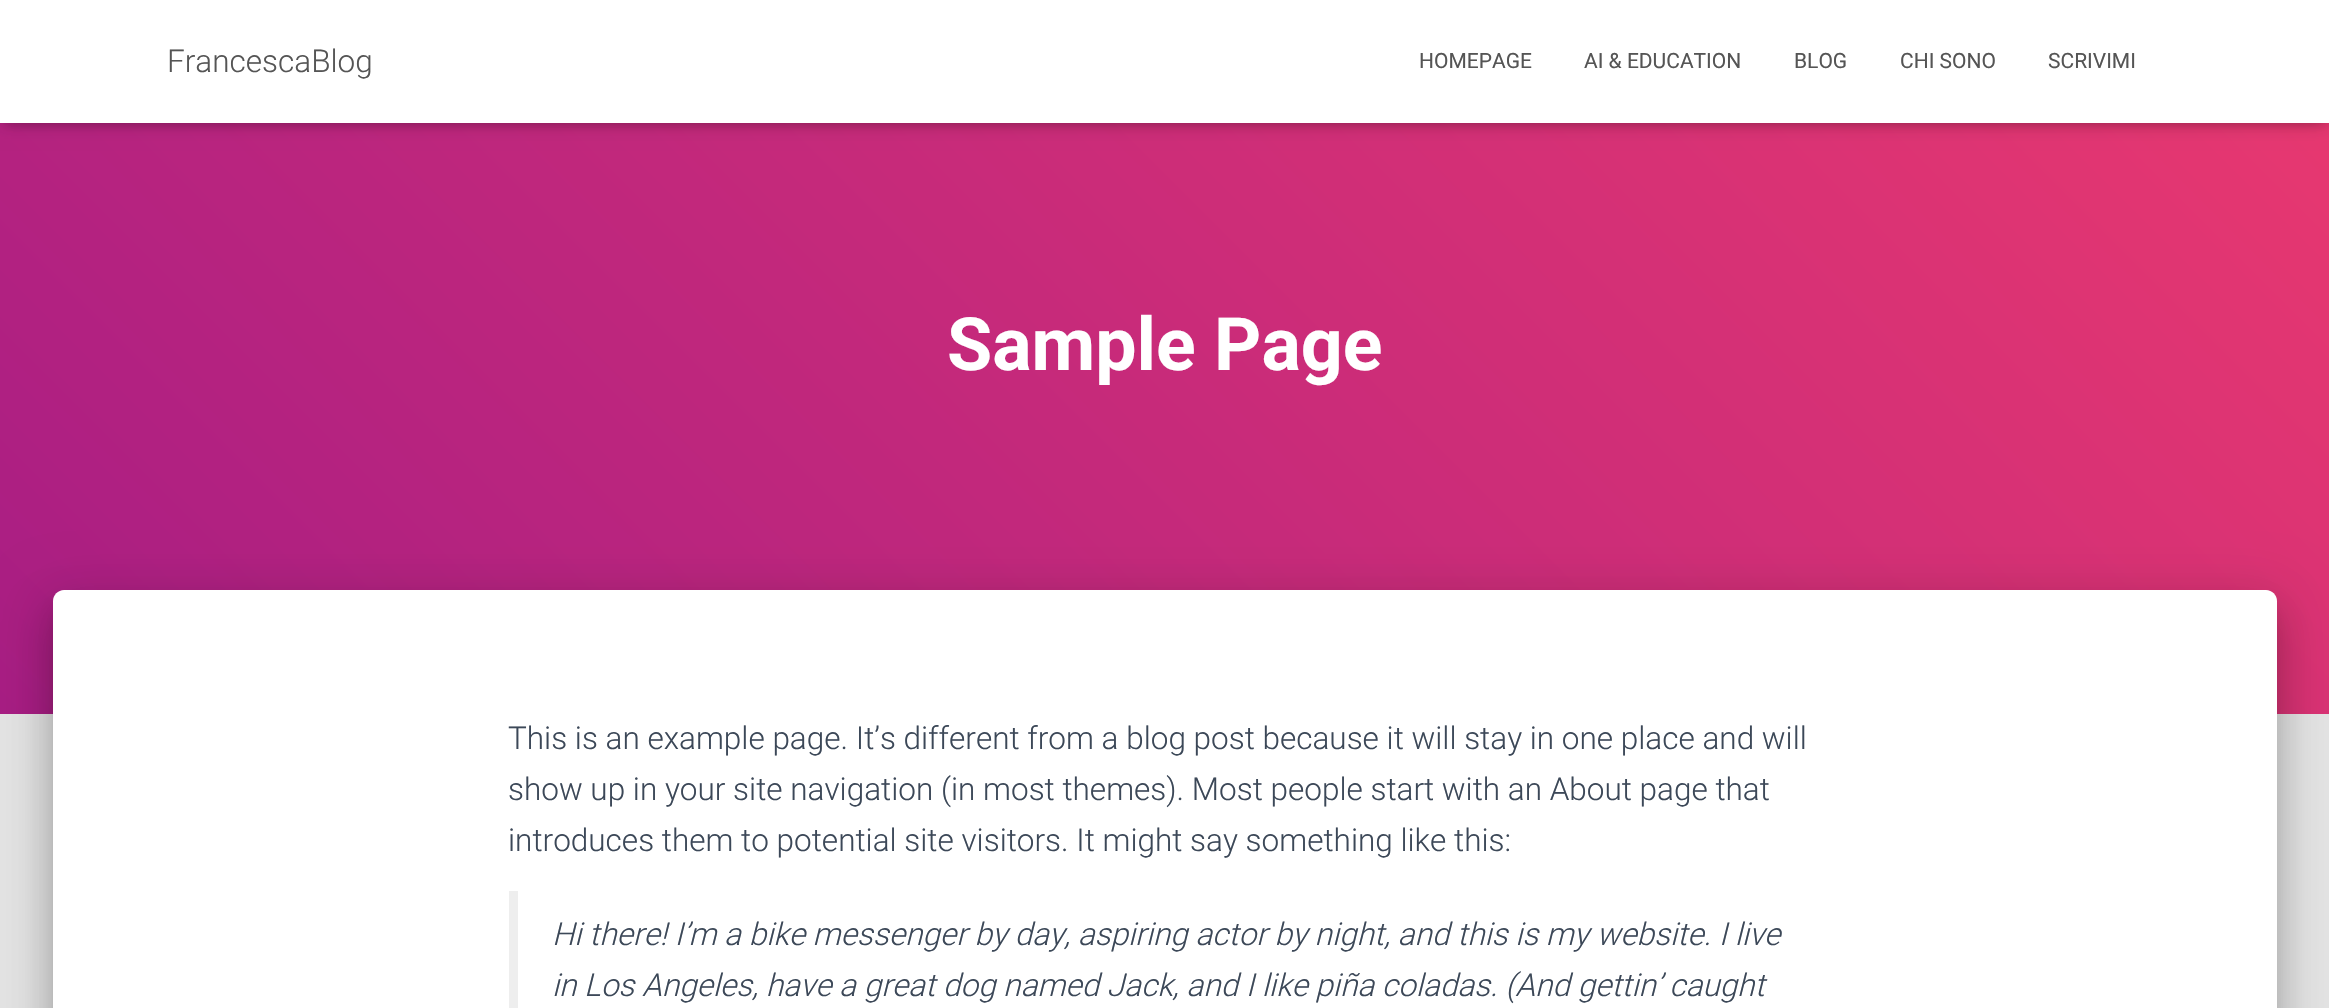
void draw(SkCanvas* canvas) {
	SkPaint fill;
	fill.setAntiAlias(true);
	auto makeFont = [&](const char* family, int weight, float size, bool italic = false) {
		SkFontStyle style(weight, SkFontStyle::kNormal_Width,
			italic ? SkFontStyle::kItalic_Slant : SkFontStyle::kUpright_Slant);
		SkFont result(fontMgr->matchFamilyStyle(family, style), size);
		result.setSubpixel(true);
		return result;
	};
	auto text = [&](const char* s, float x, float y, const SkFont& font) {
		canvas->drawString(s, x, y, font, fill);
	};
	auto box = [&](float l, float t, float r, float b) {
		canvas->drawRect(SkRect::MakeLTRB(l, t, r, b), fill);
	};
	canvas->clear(0xFFE5E5E5);
	{
		const SkColor colors[] = {0xFFA81D84, 0xFFEA396F};
		const float stops[] = {0, 1};
		const SkPoint ends[] = {{395, 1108}, {1935, -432}};
		fill.setShader(SkGradientShader::MakeLinear(ends, colors, stops, 2, SkTileMode::kClamp));
		fill.setAlpha(255);
	}
	box(0, 123, 2329, 714);
	fill.setShader(nullptr);
	fill.setColor(0x1A000000);
	fill.setMaskFilter(SkMaskFilter::MakeBlur(kNormal_SkBlurStyle, 4.5f));
	canvas->drawRect(SkRect::MakeLTRB(4, 11, 2326, 126), fill);
	fill.setMaskFilter(nullptr);
	fill.setColor(0x1F000000);
	fill.setMaskFilter(SkMaskFilter::MakeBlur(kNormal_SkBlurStyle, 9));
	canvas->drawRect(SkRect::MakeLTRB(0, 2, 2329, 124), fill);
	fill.setMaskFilter(nullptr);
	fill.setColor(0x6B000000);
	fill.setMaskFilter(SkMaskFilter::MakeBlur(kNormal_SkBlurStyle, 9));
	canvas->drawRect(SkRect::MakeLTRB(11, 12, 2319, 114), fill);
	fill.setMaskFilter(nullptr);
	fill.setColor(0xFFFFFFFF);
	box(0, 0, 2329, 123);
	fill.setColor(0x33000000);
	fill.setMaskFilter(SkMaskFilter::MakeBlur(kNormal_SkBlurStyle, 9));
	canvas->drawRoundRect(SkRect::MakeLTRB(61, 613, 2268, 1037), 2, 2, fill);
	fill.setMaskFilter(nullptr);
	fill.setColor(0x1F000000);
	fill.setMaskFilter(SkMaskFilter::MakeBlur(kNormal_SkBlurStyle, 26));
	canvas->drawRoundRect(SkRect::MakeLTRB(44, 592, 2286, 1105), 19, 19, fill);
	fill.setMaskFilter(nullptr);
	fill.setColor(0x24000000);
	fill.setMaskFilter(SkMaskFilter::MakeBlur(kNormal_SkBlurStyle, 21));
	canvas->drawRoundRect(SkRect::MakeLTRB(49, 614, 2280, 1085), 14, 14, fill);
	fill.setMaskFilter(nullptr);
	fill.setColor(0xFFFFFFFF);
	canvas->drawPath(SkPathBuilder().moveTo(64, 590).lineTo(2266, 590).cubicTo(2272, 590, 2277, 595, 2277, 601).lineTo(2277, 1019).lineTo(53, 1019).lineTo(53, 601).cubicTo(53, 595, 58, 590, 64, 590).close().detach(), fill);
	fill.setColor(0xFFEEEEEE);
	box(509, 891, 518, 1008);
	auto font1 = makeFont("Roboto", 300, 31.5f);
	fill.setColor(0xFF555555);
	text("FrancescaBlog", 167, 72, font1);
	auto font2 = makeFont("Roboto", 400, 21);
	text("HOMEPAGE", 1419, 68, font2);
	text("AI & EDUCATION", 1584, 68, font2);
	text("BLOG", 1794, 68, font2);
	text("CHI SONO", 1900, 68, font2);
	text("SCRIVIMI", 2048, 68, font2);
	auto font3 = makeFont("Roboto", 700, 73.5f);
	fill.setColor(0xFFFFFFFF);
	text("Sample Page", 947, 370, font3);
	fill.setColor(0xFF3C4858);
	text("This is an example page. It’s different from a blog post because it will stay in one place and will", 508, 749, font1);
	text("show up in your site navigation (in most themes). Most people start with an About page that", 508, 800, font1);
	text("introduces them to potential site visitors. It might say something like this:", 508, 851, font1);
	auto font4 = makeFont("Roboto", 300, 31.5f, true);
	text("Hi there! I’m a bike messenger by day, aspiring actor by night, and this is my website. I live", 552, 945, font4);
	text("in Los Angeles, have a great dog named Jack, and I like piña coladas. (And gettin’ caught", 552, 996, font4);
}
